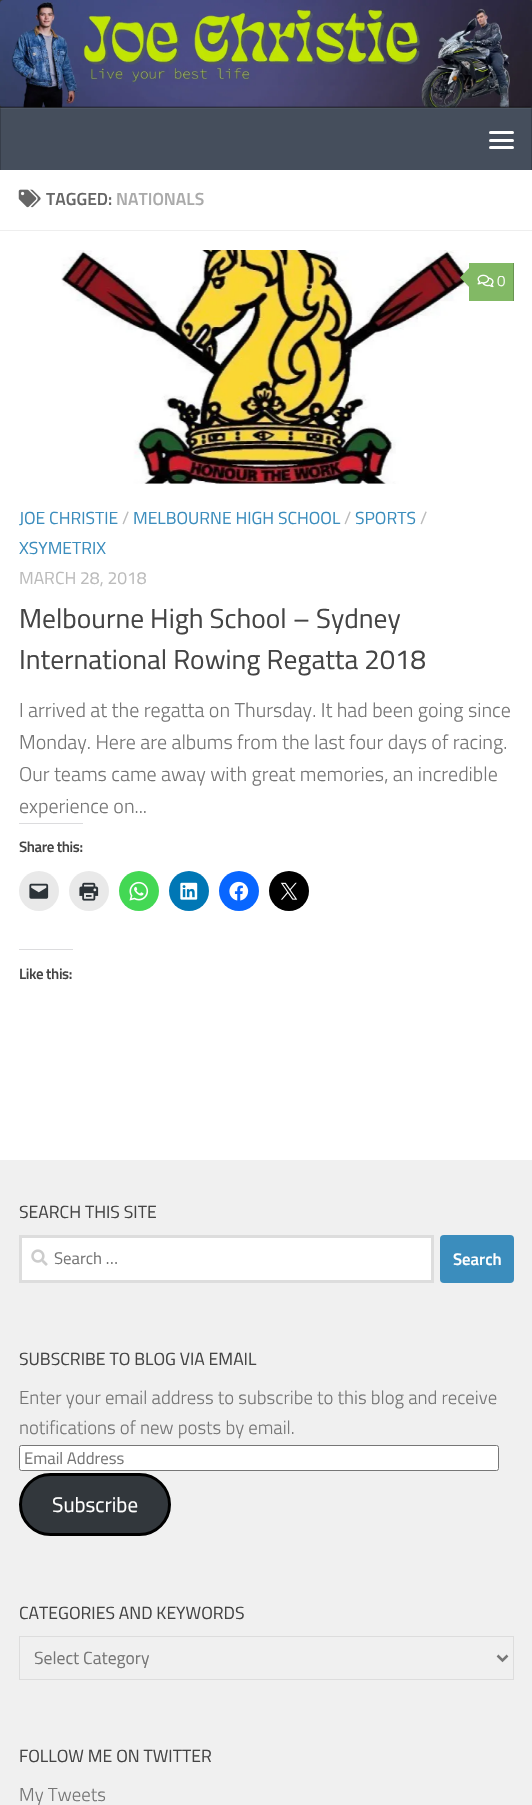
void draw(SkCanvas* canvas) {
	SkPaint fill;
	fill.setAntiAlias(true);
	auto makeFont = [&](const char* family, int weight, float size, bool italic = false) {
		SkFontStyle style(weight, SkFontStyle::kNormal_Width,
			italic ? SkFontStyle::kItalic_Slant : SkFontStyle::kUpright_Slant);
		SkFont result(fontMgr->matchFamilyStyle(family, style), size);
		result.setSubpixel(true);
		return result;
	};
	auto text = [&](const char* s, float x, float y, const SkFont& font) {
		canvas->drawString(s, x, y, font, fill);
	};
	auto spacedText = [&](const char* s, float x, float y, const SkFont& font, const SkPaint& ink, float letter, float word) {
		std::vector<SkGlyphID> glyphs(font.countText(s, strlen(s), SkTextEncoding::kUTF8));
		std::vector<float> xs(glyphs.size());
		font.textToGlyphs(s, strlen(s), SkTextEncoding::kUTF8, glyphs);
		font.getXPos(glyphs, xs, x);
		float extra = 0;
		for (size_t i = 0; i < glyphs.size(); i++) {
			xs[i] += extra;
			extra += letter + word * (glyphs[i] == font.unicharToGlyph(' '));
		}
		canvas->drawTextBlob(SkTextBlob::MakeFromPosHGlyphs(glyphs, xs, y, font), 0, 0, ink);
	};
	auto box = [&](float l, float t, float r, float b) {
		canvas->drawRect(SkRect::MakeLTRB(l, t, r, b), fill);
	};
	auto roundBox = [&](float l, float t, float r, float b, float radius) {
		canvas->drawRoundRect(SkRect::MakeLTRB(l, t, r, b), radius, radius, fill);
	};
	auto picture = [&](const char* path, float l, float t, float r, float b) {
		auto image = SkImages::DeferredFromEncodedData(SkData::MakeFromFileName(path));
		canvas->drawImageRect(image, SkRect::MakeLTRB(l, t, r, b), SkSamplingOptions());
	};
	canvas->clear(0xFFFFFFFF);
	fill.setColor(0xFF33363B);
	box(0, 0, 532, 108);
	picture("image0.png", 0, 0, 532, 108);
	fill.setColor(0x33000000);
	canvas->drawPath(SkPathBuilder().moveTo(0, 106).lineTo(0, 108).lineTo(532, 108).lineTo(532, 169).lineTo(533, 169).lineTo(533, 106).close().detach(), fill);
	fill.setColor(0xFF454E5C);
	box(1, 109, 531, 170);
	fill.setColor(0xFF4E5764);
	box(0, 108, 532, 109);
	fill.setColor(0xFF373E4A);
	box(531, 108, 532, 170);
	fill.setColor(0xFF414853);
	box(531, 108, 532, 109);
	fill.setColor(0xFF373E4A);
	box(0, 108, 1, 170);
	fill.setColor(0xFF414853);
	box(0, 108, 1, 109);
	fill.setColor(0xFFFFFFFF);
	roundBox(489, 131, 514, 134, 1.5f);
	roundBox(489, 139, 514, 142, 1.5f);
	roundBox(489, 146, 514, 149, 1.5f);
	fill.setColor(0xFFEEEEEE);
	box(0, 230, 532, 231);
	picture("image1.png", 18, 189, 41, 208);
	picture("image2.png", 61, 250, 470, 484);
	fill.setColor(0xFF82B965);
	box(469, 263, 513, 301);
	fill.setColor(0xFF689451);
	box(513, 263, 514, 301);
	fill.setColor(0xFF82B965);
	canvas->drawPath(SkPathBuilder().moveTo(471, 266).lineTo(471, 289).lineTo(460, 277.5f).close().detach(), fill);
	picture("image3.png", 477, 274, 494, 288);
	fill.setColor(0xFFDCDCDE);
	box(19, 823, 83, 824);
	fill.setColor(0xFFE9E9E9);
	canvas->drawCircle(39, 891, 20, fill);
	picture("image4.png", 29, 883, 49, 899);
	canvas->drawCircle(89, 891, 20, fill);
	picture("image5.png", 79, 882, 99, 901);
	fill.setColor(0xFF43D854);
	canvas->drawCircle(139, 891, 20, fill);
	picture("image6.png", 129, 881, 149, 901);
	fill.setColor(0xFF0077B5);
	canvas->drawCircle(189, 891, 20, fill);
	picture("image7.png", 180, 882, 198, 900);
	fill.setColor(0xFF0866FF);
	canvas->drawCircle(239, 891, 20, fill);
	picture("image8.png", 229, 881, 249, 901);
	fill.setColor(0xFF000000);
	canvas->drawCircle(289, 891, 20, fill);
	picture("image9.png", 280, 882, 298, 900);
	fill.setColor(0xFFDCDCDE);
	box(19, 949, 73, 950);
	fill.setColor(0xFFF0F0F0);
	box(0, 1160, 532, 1805);
	fill.setColor(0xFFFFFFFF);
	canvas->drawRect(SkRect::MakeLTRB(20.5f, 1236.5f, 432.5f, 1281.5f), fill);
	fill.setStyle(SkPaint::kStroke_Style);
	fill.setStrokeWidth(3);
	fill.setColor(0xFFDDDDDD);
	canvas->drawRect(SkRect::MakeLTRB(20.5f, 1236.5f, 432.5f, 1281.5f), fill);
	picture("image10.png", 31, 1249, 48, 1266);
	fill.setStyle(SkPaint::kFill_Style);
	fill.setColor(0xFF3B8DBD);
	roundBox(440, 1235, 514, 1283, 4);
	fill.setColor(0xFFFFFFFF);
	canvas->drawRoundRect(SkRect::MakeLTRB(19.5f, 1445.5f, 498.5f, 1470.5f), 2, 2, fill);
	fill.setStyle(SkPaint::kStroke_Style);
	fill.setStrokeWidth(1);
	fill.setColor(0xFF767676);
	canvas->drawRoundRect(SkRect::MakeLTRB(19.5f, 1445.5f, 498.5f, 1470.5f), 2, 2, fill);
	fill.setStyle(SkPaint::kFill_Style);
	fill.setColor(0xFF32373C);
	canvas->drawRoundRect(SkRect::MakeLTRB(20.5f, 1474.5f, 169.5f, 1534.5f), 30, 30, fill);
	fill.setStyle(SkPaint::kStroke_Style);
	fill.setStrokeWidth(3);
	fill.setColor(0xFF000000);
	canvas->drawRoundRect(SkRect::MakeLTRB(20.5f, 1474.5f, 169.5f, 1534.5f), 30, 30, fill);
	fill.setStrokeWidth(1);
	fill.setColor(0xFFDDDDDD);
	canvas->drawRect(SkRect::MakeLTRB(19.5f, 1636.5f, 513.5f, 1679.5f), fill);
	fill.setStrokeWidth(2.5f);
	fill.setColor(0xFF777777);
	canvas->drawPath(SkPathBuilder().moveTo(497.5f, 1655.5f).lineTo(502.5f, 1660.5f).lineTo(507.5f, 1655.5f).detach(), fill);
	auto font1 = makeFont("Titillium", 600, 17.5f);
	fill.setStyle(SkPaint::kFill_Style);
	fill.setColor(0xFF666666);
	text("TAGGED:", 46, 205, font1);
	fill.setColor(0xFFAAAAAA);
	text("NATIONALS", 116, 205, font1);
	auto font2 = makeFont("Titillium", 300, 15);
	fill.setColor(0xFFFFFFFF);
	text("0", 497, 286, font2);
	auto font3 = makeFont("Titillium", 400, 17.5f);
	fill.setColor(0xFF3B8DBD);
	text("JOE CHRISTIE", 19, 524, font3);
	fill.setColor(0xFFBBBBBB);
	text("/", 122, 524, font3);
	fill.setColor(0xFF3B8DBD);
	text("MELBOURNE HIGH SCHOOL", 133, 524, font3);
	fill.setColor(0xFFBBBBBB);
	text("/", 344, 524, font3);
	fill.setColor(0xFF3B8DBD);
	text("SPORTS", 355, 524, font3);
	fill.setColor(0xFFBBBBBB);
	text("/", 420, 524, font3);
	fill.setColor(0xFF3B8DBD);
	text("XSYMETRIX", 19, 554, font3);
	fill.setColor(0xFFBBBBBB);
	text("MARCH 28, 2018", 19, 584, font3);
	auto font4 = makeFont("Titillium", 400, 27.5f);
	fill.setColor(0xFF444444);
	text("Melbourne High School – Sydney", 19, 628, font4);
	text("International Rowing Regatta 2018", 19, 669, font4);
	auto font5 = makeFont("Titillium", 300, 20);
	fill.setColor(0xFF767676);
	text("I arrived at the regatta on Thursday. It had been going since", 19, 717, font5);
	text("Monday. Here are albums from the last four days of racing.", 19, 749, font5);
	text("Our teams came away with great memories, an incredible", 19, 781, font5);
	text("experience on...", 19, 813, font5);
	auto font6 = makeFont("Titillium", 600, 15);
	fill.setColor(0xFF444444);
	spacedText("Share this:", 19, 852, font6, fill, -0.4f, 0);
	spacedText("Like this:", 19, 979, font6, fill, -0.4f, 0);
	auto font7 = makeFont("Titillium", 400, 17.6f);
	text("SEARCH THIS SITE", 19, 1218, font7);
	auto font8 = makeFont("Titillium", 400, 16.75f);
	fill.setColor(0xFF767676);
	text("Search …", 54, 1264, font8);
	auto font9 = makeFont("Titillium", 600, 16.75f);
	fill.setColor(0xFFFFFFFF);
	text("Search", 453, 1265, font9);
	fill.setColor(0xFF444444);
	text("SUBSCRIBE TO BLOG VIA EMAIL", 19, 1365, font7);
	auto font10 = makeFont("Titillium", 300, 18.75f);
	fill.setColor(0xFF767676);
	text("Enter your email address to subscribe to this blog and receive", 19, 1404, font10);
	text("notifications of new posts by email.", 19, 1434, font10);
	text("Email Address", 24, 1464, font8);
	auto font11 = makeFont("Titillium", 400, 21);
	fill.setColor(0xFFFFFFFF);
	text("Subscribe", 52, 1512, font11);
	fill.setColor(0xFF444444);
	text("CATEGORIES AND KEYWORDS", 19, 1619, font7);
	fill.setColor(0xFF767676);
	text("Select Category", 34, 1664, font7);
	fill.setColor(0xFF444444);
	text("FOLLOW ME ON TWITTER", 19, 1762, font7);
	fill.setColor(0xFF767676);
	text("My Tweets", 19, 1801, font10);
}
